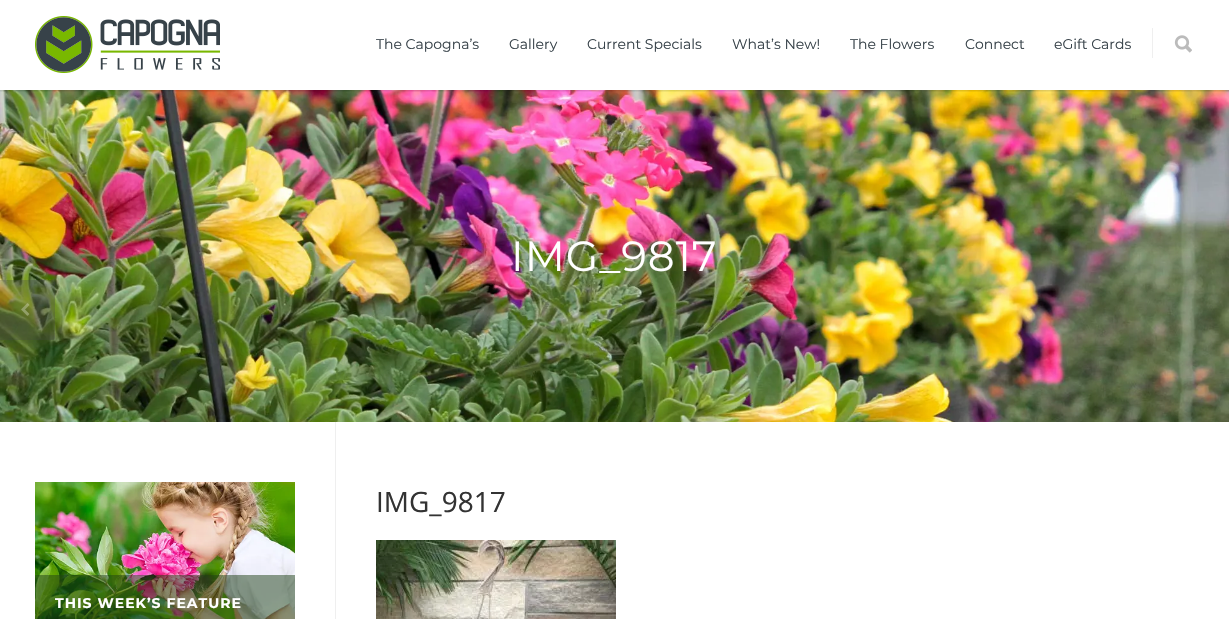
void draw(SkCanvas* canvas) {
	SkPaint fill;
	fill.setAntiAlias(true);
	auto makeFont = [&](const char* family, int weight, float size, bool italic = false) {
		SkFontStyle style(weight, SkFontStyle::kNormal_Width,
			italic ? SkFontStyle::kItalic_Slant : SkFontStyle::kUpright_Slant);
		SkFont result(fontMgr->matchFamilyStyle(family, style), size);
		result.setSubpixel(true);
		return result;
	};
	auto text = [&](const char* s, float x, float y, const SkFont& font) {
		canvas->drawString(s, x, y, font, fill);
	};
	auto spacedText = [&](const char* s, float x, float y, const SkFont& font, const SkPaint& ink, float letter, float word) {
		std::vector<SkGlyphID> glyphs(font.countText(s, strlen(s), SkTextEncoding::kUTF8));
		std::vector<float> xs(glyphs.size());
		font.textToGlyphs(s, strlen(s), SkTextEncoding::kUTF8, glyphs);
		font.getXPos(glyphs, xs, x);
		float extra = 0;
		for (size_t i = 0; i < glyphs.size(); i++) {
			xs[i] += extra;
			extra += letter + word * (glyphs[i] == font.unicharToGlyph(' '));
		}
		canvas->drawTextBlob(SkTextBlob::MakeFromPosHGlyphs(glyphs, xs, y, font), 0, 0, ink);
	};
	auto box = [&](float l, float t, float r, float b) {
		canvas->drawRect(SkRect::MakeLTRB(l, t, r, b), fill);
	};
	auto picture = [&](const char* path, float l, float t, float r, float b) {
		auto image = SkImages::DeferredFromEncodedData(SkData::MakeFromFileName(path));
		canvas->drawImageRect(image, SkRect::MakeLTRB(l, t, r, b), SkSamplingOptions());
	};
	canvas->clear(0xFFFFFFFF);
	picture("image2.png", 0, 90, 1229, 422);
	canvas->save();
	canvas->clipRect(SkRect::MakeLTRB(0, 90, 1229, 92));
	fill.setColor(0x29000000);
	fill.setMaskFilter(SkMaskFilter::MakeBlur(kNormal_SkBlurStyle, 1));
	canvas->drawRect(SkRect::MakeLTRB(-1, -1, 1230, 91), fill);
	fill.setMaskFilter(nullptr);
	canvas->restore();
	picture("image0.png", 35, 16, 220, 73);
	fill.setColor(0xFFEFEFEF);
	box(1152, 28, 1153, 58);
	picture("image1.png", 1174, 35, 1192, 53);
	box(335, 422, 336, 619);
	fill.setColor(0x4D444444);
	canvas->drawPath(SkPathBuilder().moveTo(-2, 280).lineTo(53, 280).cubicTo(54, 280, 55, 281, 55, 282).lineTo(55, 338).cubicTo(55, 339, 54, 340, 53, 340).lineTo(-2, 340).close().detach(), fill);
	picture("image3.png", 21, 303, 30, 316);
	picture("image4.png", 376, 540, 616, 619);
	picture("image5.png", 35, 482, 295, 619);
	fill.setColor(0x801D4016);
	box(35, 575, 295, 619);
	auto font1 = makeFont("Montserrat", 400, 14);
	fill.setColor(0xFF374249);
	text("The Capogna’s", 376, 49, font1);
	text("Gallery", 509, 49, font1);
	text("Current Specials", 587, 49, font1);
	text("What’s New!", 732, 49, font1);
	text("The Flowers", 850, 49, font1);
	text("Connect", 965, 49, font1);
	text("eGift Cards", 1054, 49, font1);
	auto font2 = makeFont("Montserrat", 400, 42);
	fill.setColor(0xFFFFFFFF);
	spacedText("IMG_9817", 511, 271, font2, fill, 1, 0);
	auto font3 = makeFont("Open Sans", 400, 28);
	fill.setColor(0xFF333333);
	text("IMG_9817", 376, 512, font3);
	auto font4 = makeFont("Montserrat", 700, 14);
	fill.setColor(0xFFFFFFFF);
	spacedText("THIS WEEK’S FEATURE", 55, 608, font4, fill, 1, 0);
}
